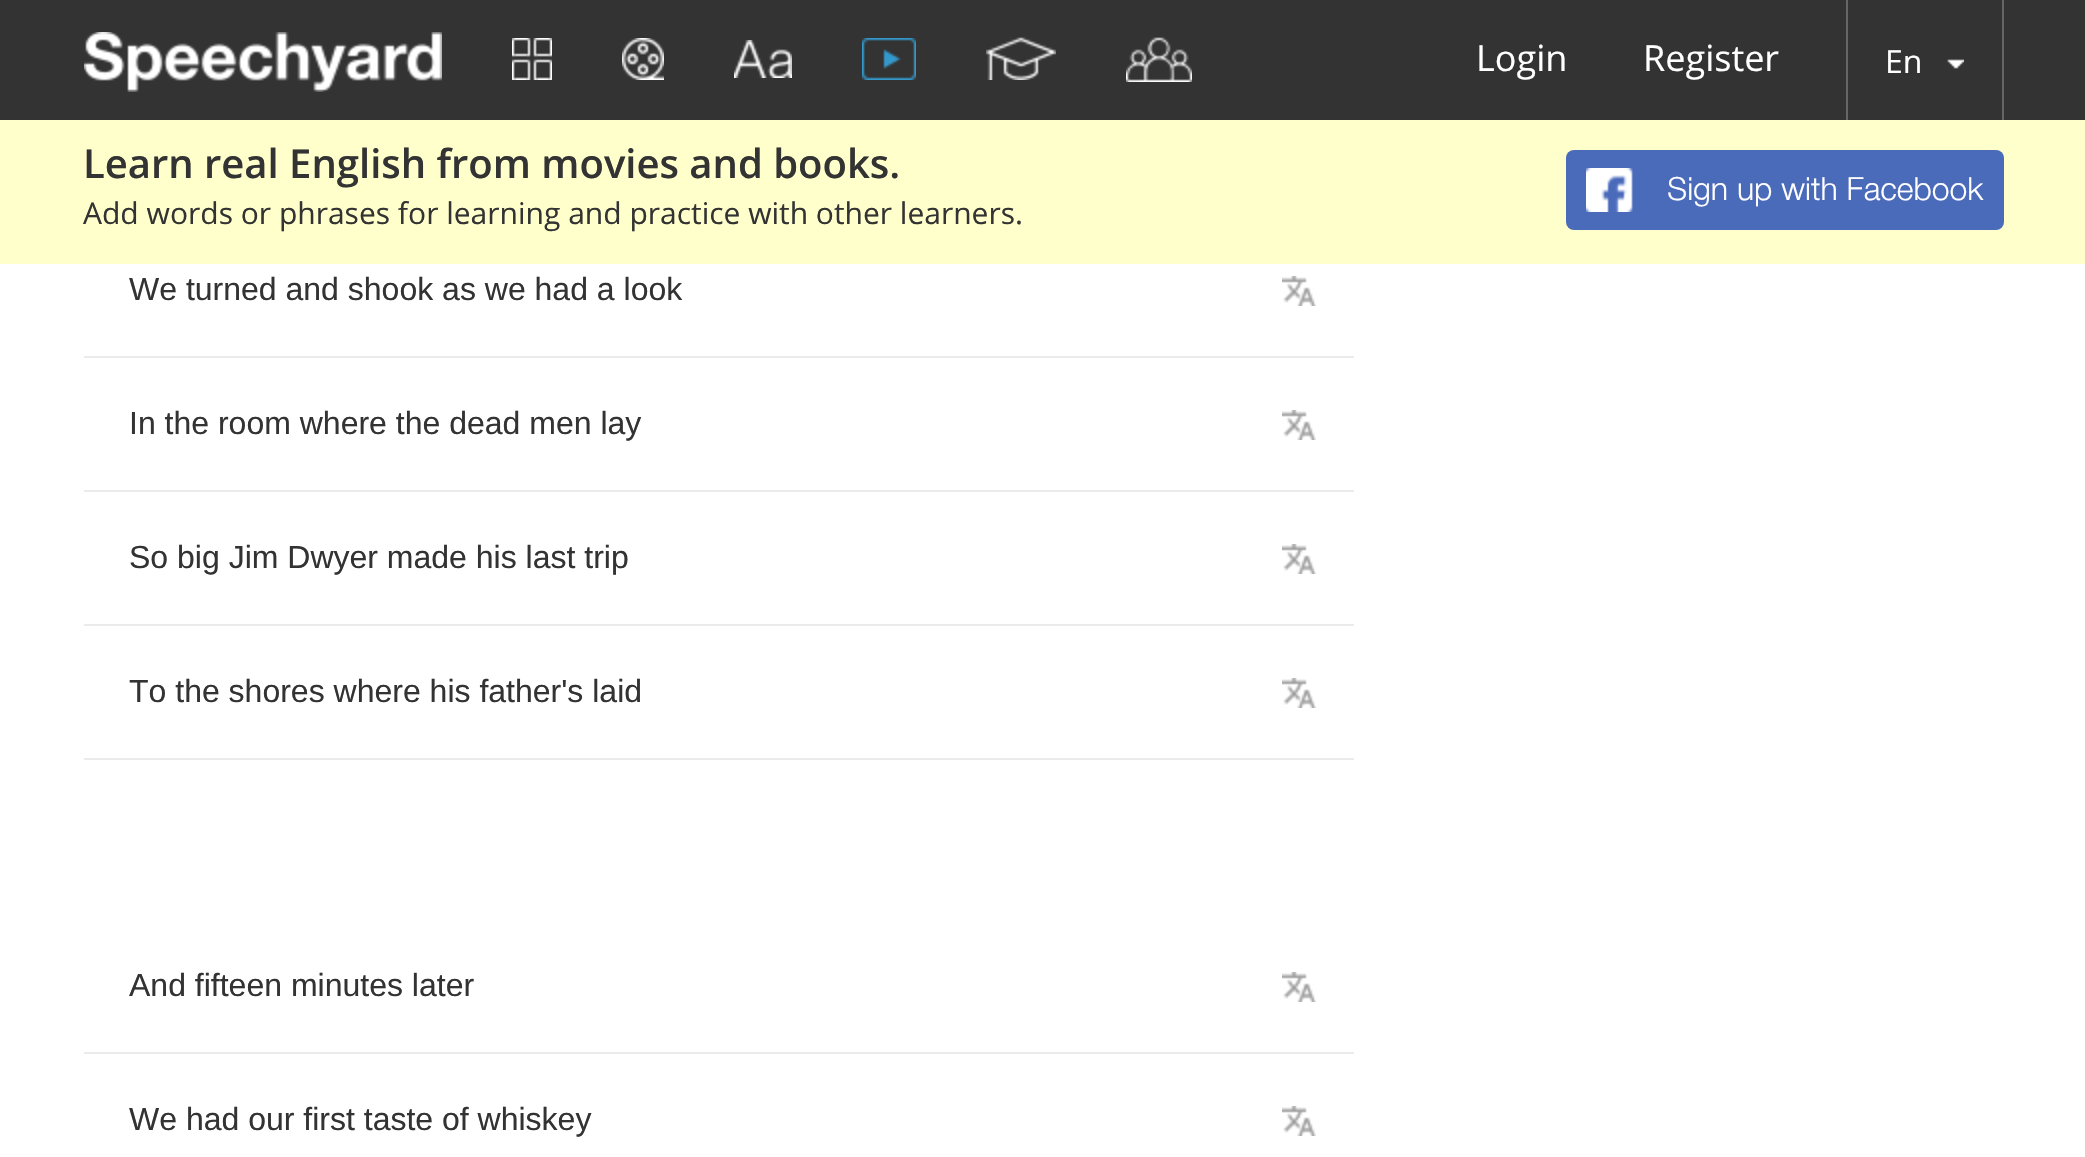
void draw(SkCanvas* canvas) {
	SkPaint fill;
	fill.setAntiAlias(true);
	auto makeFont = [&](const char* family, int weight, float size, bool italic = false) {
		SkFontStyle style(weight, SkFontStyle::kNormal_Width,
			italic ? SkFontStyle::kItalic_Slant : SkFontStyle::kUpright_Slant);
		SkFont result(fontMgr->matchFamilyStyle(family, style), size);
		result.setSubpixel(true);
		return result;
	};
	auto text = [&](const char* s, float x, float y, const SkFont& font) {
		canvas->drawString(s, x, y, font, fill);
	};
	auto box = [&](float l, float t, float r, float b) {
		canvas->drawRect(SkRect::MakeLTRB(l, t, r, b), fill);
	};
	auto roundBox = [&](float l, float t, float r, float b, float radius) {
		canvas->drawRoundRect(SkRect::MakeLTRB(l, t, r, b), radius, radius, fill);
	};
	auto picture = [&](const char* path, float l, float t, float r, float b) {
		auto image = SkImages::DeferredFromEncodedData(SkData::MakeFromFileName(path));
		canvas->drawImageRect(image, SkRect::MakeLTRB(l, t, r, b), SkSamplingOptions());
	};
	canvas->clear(0xFFFFFFFF);
	fill.setColor(0xFF333333);
	box(0, 0, 2085, 120);
	picture("image0.png", 84, 32, 442, 92);
	picture("image1.png", 512, 38, 552, 80);
	picture("image2.png", 622, 38, 664, 80);
	picture("image3.png", 734, 40, 792, 78);
	picture("image4.png", 862, 38, 916, 80);
	picture("image5.png", 986, 37, 1056, 80);
	picture("image6.png", 1126, 37, 1192, 82);
	fill.setColor(0xFF666666);
	box(1846, 0, 1848, 120);
	picture("image7.png", 1947, 59, 1964, 69);
	box(2002, 0, 2004, 120);
	fill.setColor(0xFFFFFFCC);
	box(0, 120, 2085, 264);
	fill.setColor(0xFF4A6ABA);
	roundBox(1566, 150, 2004, 230, 8);
	picture("image8.png", 1586, 168, 1633, 212);
	fill.setColor(0xFFEBEBEB);
	box(84, 356, 1354, 358);
	picture("image9.png", 1282, 276, 1316, 306);
	box(84, 490, 1354, 492);
	picture("image9.png", 1282, 410, 1316, 440);
	box(84, 624, 1354, 626);
	picture("image9.png", 1282, 544, 1316, 574);
	box(84, 758, 1354, 760);
	picture("image9.png", 1282, 678, 1316, 708);
	box(84, 1052, 1354, 1054);
	picture("image9.png", 1282, 972, 1316, 1002);
	picture("image9.png", 1282, 1106, 1316, 1136);
	auto font1 = makeFont("Open Sans", 400, 36);
	fill.setColor(0xFFFFFFFF);
	text("Login", 1476, 71, font1);
	text("Register", 1643, 71, font1);
	auto font2 = makeFont("Open Sans", 400, 32);
	text("En", 1885, 73, font2);
	auto font3 = makeFont("Open Sans", 600, 40);
	fill.setColor(0xFF333333);
	text("Learn real English from movies and books.", 83, 178, font3);
	auto font4 = makeFont("Open Sans", 400, 30);
	text("Add words or phrases for learning and practice with other learners.", 83, 224, font4);
	auto font5 = makeFont("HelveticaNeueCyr", 300, 32);
	fill.setColor(0xFFFFFFFF);
	text("Sign up with Facebook", 1667, 200, font5);
	auto font6 = makeFont("Liberation Sans", 400, 32);
	fill.setColor(0xFF333333);
	text("We turned and shook as we had a look", 129, 300, font6);
	text("In the room where the dead men lay", 129, 434, font6);
	text("So big Jim Dwyer made his last trip", 129, 568, font6);
	text("To the shores where his father's laid", 129, 702, font6);
	text("And fifteen minutes later", 129, 996, font6);
	text("We had our first taste of whiskey", 129, 1130, font6);
}
